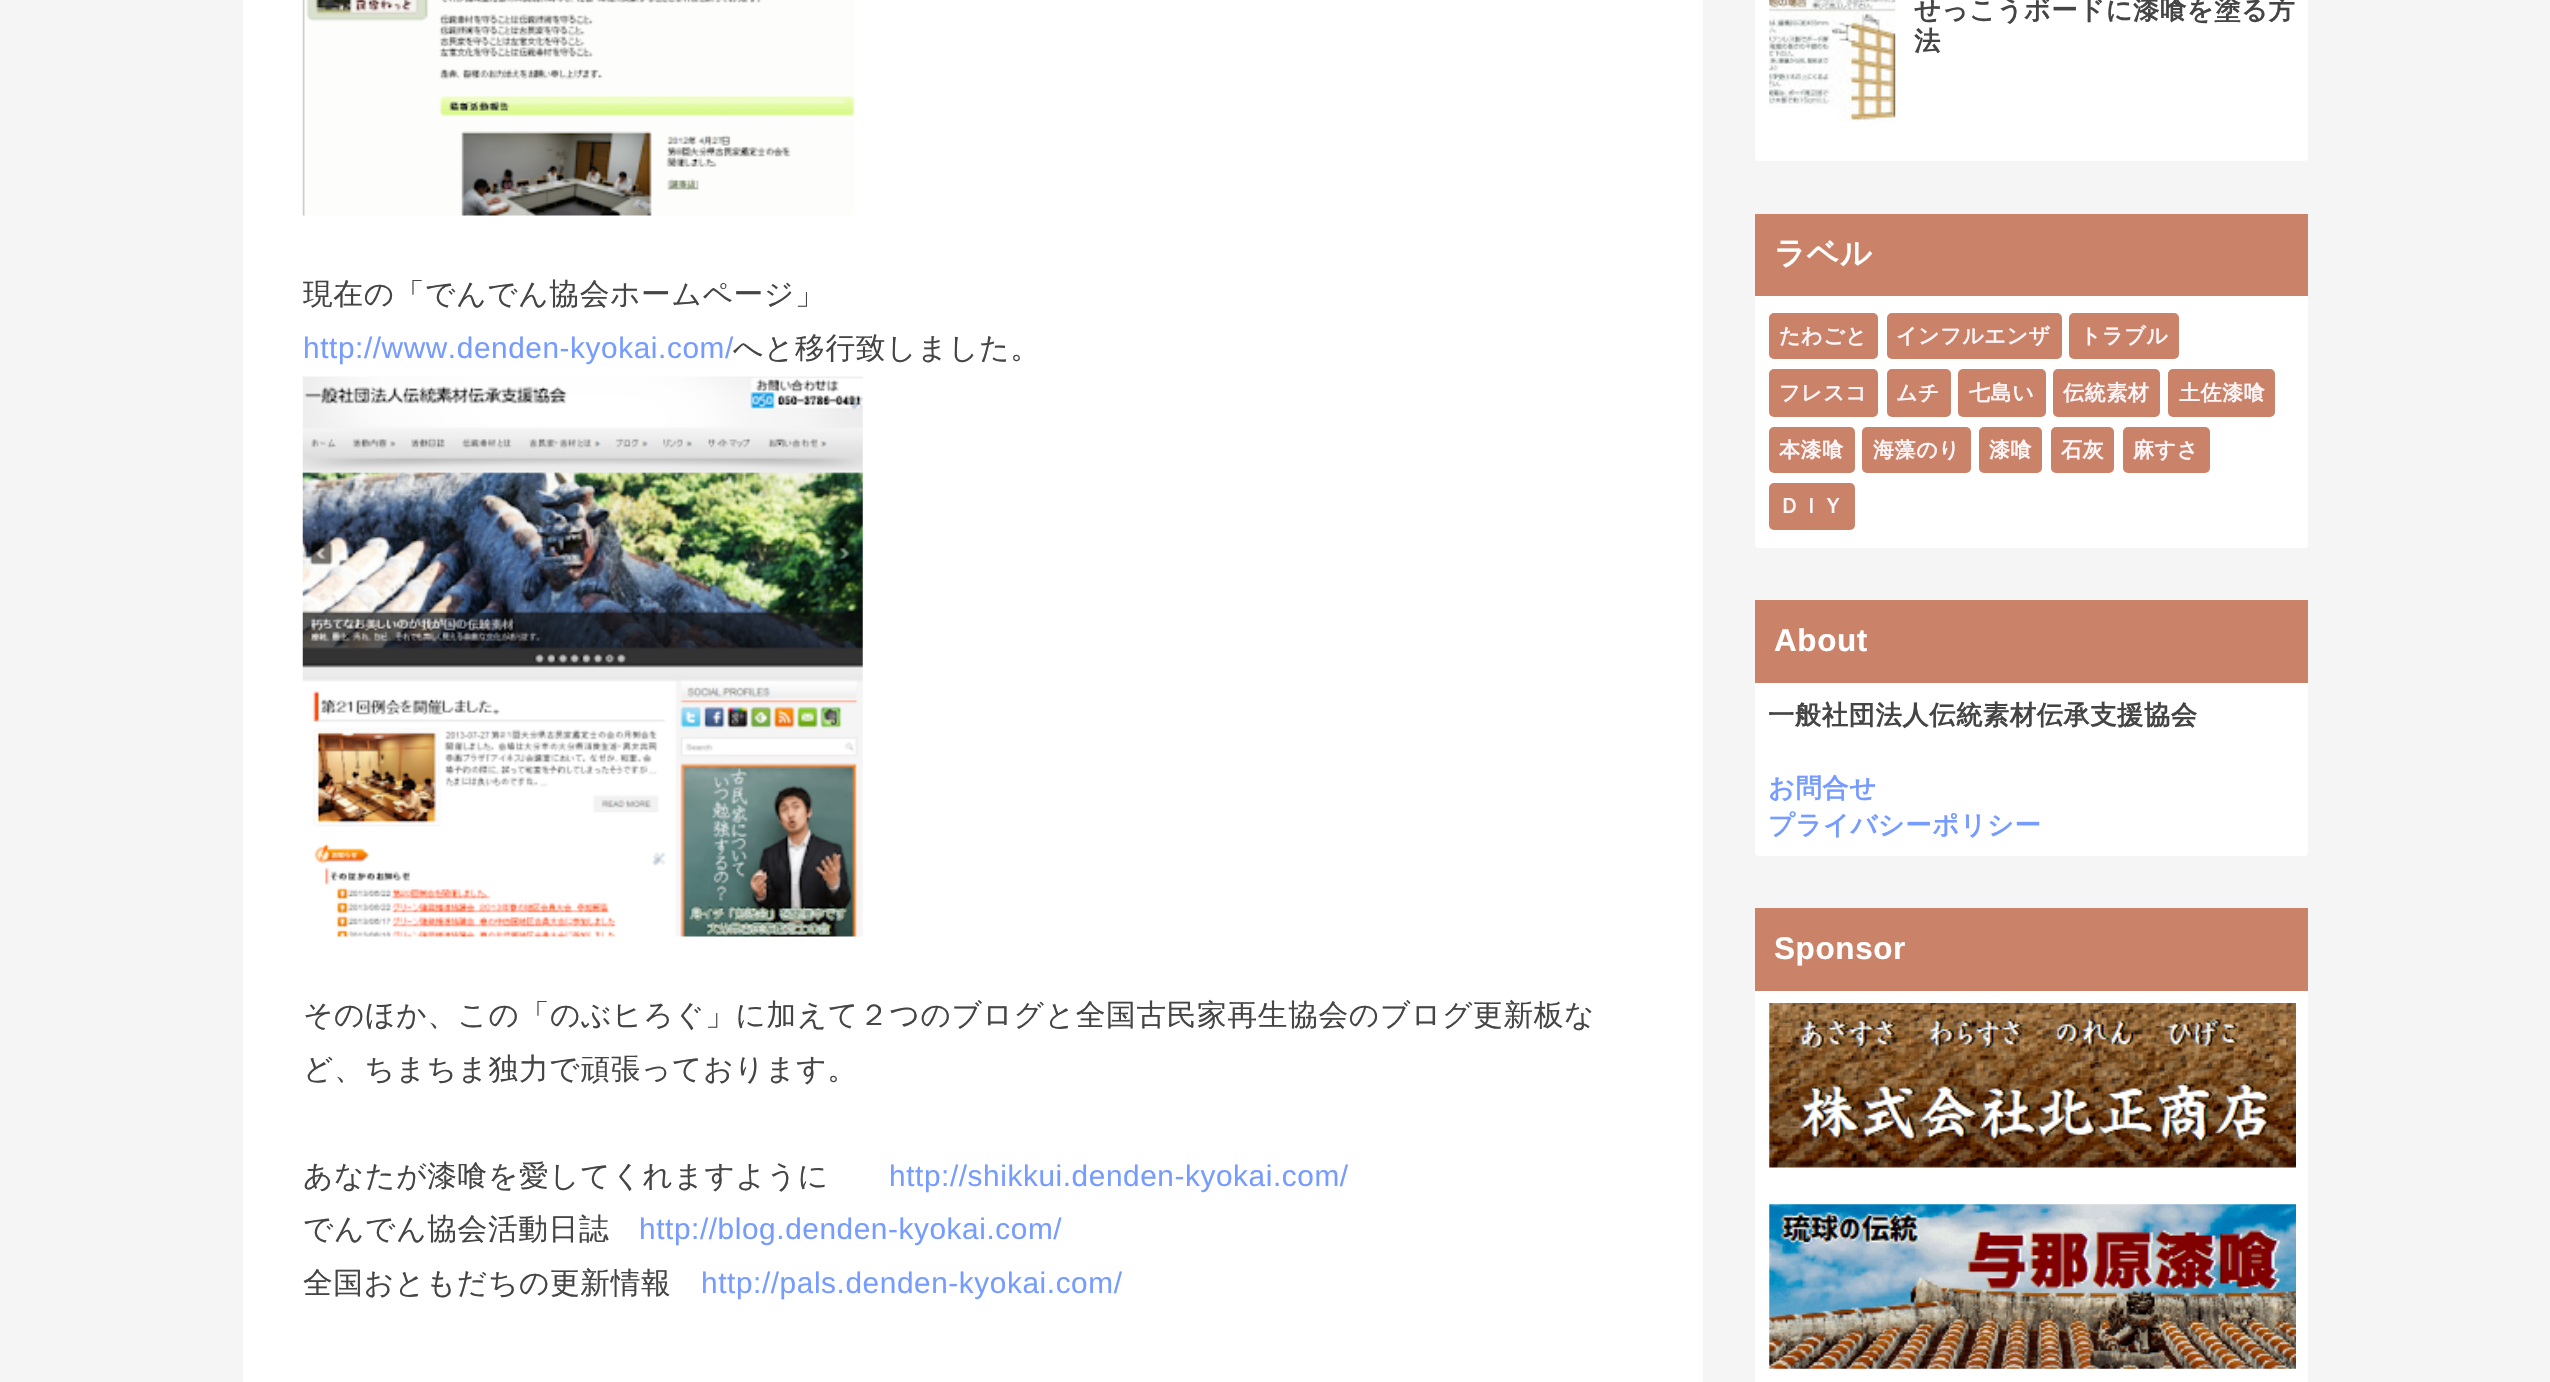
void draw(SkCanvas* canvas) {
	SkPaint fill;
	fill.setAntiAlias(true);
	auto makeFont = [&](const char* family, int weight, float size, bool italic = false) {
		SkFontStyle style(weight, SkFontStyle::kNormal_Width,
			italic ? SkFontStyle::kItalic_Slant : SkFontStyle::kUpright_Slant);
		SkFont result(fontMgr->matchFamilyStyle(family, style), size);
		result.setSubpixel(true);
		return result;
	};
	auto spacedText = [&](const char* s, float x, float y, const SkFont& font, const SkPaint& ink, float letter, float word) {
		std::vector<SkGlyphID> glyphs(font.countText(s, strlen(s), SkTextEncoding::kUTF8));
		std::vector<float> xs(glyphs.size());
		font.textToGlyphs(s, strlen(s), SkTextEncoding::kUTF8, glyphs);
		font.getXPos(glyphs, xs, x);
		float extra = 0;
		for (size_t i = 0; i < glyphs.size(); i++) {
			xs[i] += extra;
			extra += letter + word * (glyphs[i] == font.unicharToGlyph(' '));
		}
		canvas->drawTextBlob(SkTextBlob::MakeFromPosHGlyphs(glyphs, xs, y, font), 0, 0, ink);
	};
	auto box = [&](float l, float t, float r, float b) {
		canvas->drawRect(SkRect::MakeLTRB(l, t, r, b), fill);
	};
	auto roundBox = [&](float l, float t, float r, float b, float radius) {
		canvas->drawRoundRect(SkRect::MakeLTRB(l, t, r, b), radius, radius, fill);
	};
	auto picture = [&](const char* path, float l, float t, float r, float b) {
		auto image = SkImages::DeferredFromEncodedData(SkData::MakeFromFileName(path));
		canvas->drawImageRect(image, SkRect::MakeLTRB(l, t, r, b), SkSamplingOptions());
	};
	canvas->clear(0xFFF6F5F5);
	fill.setColor(0xFFFFFFFF);
	box(243, 0, 1703, 1382);
	picture("image0.png", 302, 0, 855, 216);
	picture("image1.png", 302, 376, 863, 937);
	roundBox(1755, -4, 2308, 161, 4);
	picture("image2.png", 1769, 0, 1896, 121);
	roundBox(1755, 214, 2308, 548, 4);
	fill.setColor(0xFFCA8269);
	box(1755, 214, 2308, 296);
	roundBox(1769, 313, 1878, 359, 5);
	roundBox(1887, 313, 2062, 359, 5);
	roundBox(2069, 313, 2179, 359, 5);
	roundBox(1769, 369, 1878, 417, 5);
	roundBox(1887, 369, 1951, 417, 5);
	roundBox(1958, 369, 2046, 417, 5);
	roundBox(2053, 369, 2160, 417, 5);
	roundBox(2168, 369, 2275, 417, 5);
	roundBox(1769, 427, 1855, 473, 5);
	roundBox(1862, 427, 1971, 473, 5);
	roundBox(1979, 427, 2042, 473, 5);
	roundBox(2051, 427, 2114, 473, 5);
	roundBox(2123, 427, 2210, 473, 5);
	roundBox(1769, 483, 1855, 530, 5);
	fill.setColor(0xFFFFFFFF);
	roundBox(1755, 600, 2308, 856, 4);
	fill.setColor(0xFFCA8269);
	box(1755, 600, 2308, 683);
	fill.setColor(0xFFFFFFFF);
	box(1755, 991, 2308, 1382);
	fill.setColor(0xFFCA8269);
	box(1755, 908, 2308, 991);
	picture("image3.png", 1769, 1003, 2296, 1168);
	picture("image4.png", 1769, 1204, 2296, 1369);
	auto font1 = makeFont("WenQuanYi Zen Hei", 500, 29.75f);
	fill.setColor(0xFF454545);
	spacedText("現在の「でんでん協会ホームページ」", 303, 304, font1, fill, 0.6f, 0);
	auto font2 = makeFont("Liberation Sans", 400, 29.75f);
	fill.setColor(0xFF779CFF);
	spacedText("http://www.denden-kyokai.com/", 303, 358, font2, fill, 0.6f, 0);
	fill.setColor(0xFF454545);
	spacedText("へと移行致しました。", 733, 358, font1, fill, 0.6f, 0);
	spacedText("そのほか、この「のぶヒろぐ」に加えて２つのブログと全国古民家再生協会のブログ更新板な", 303, 1025, font1, fill, 0.6f, 0);
	spacedText("ど、ちまちま独力で頑張っております。", 303, 1079, font1, fill, 0.6f, 0);
	spacedText("あなたが漆喰を愛してくれますように", 303, 1186, font1, fill, 0.6f, 0);
	fill.setColor(0xFF779CFF);
	spacedText("http://shikkui.denden-kyokai.com/", 889, 1186, font2, fill, 0.6f, 0);
	fill.setColor(0xFF454545);
	spacedText("でんでん協会活動日誌", 303, 1239, font1, fill, 0.6f, 0);
	fill.setColor(0xFF779CFF);
	spacedText("http://blog.denden-kyokai.com/", 639, 1239, font2, fill, 0.6f, 0);
	fill.setColor(0xFF454545);
	spacedText("全国おともだちの更新情報", 303, 1293, font1, fill, 0.6f, 0);
	fill.setColor(0xFF779CFF);
	spacedText("http://pals.denden-kyokai.com/", 701, 1293, font2, fill, 0.6f, 0);
	auto font3 = makeFont("WenQuanYi Zen Hei", 700, 26.25f);
	fill.setColor(0xFF454545);
	spacedText("せっこうボードに漆喰を塗る方", 1914, 19, font3, fill, 0.6f, 0);
	spacedText("法", 1914, 50, font3, fill, 0.6f, 0);
	auto font4 = makeFont("WenQuanYi Zen Hei", 700, 31.5f);
	fill.setColor(0xFFFFFFFF);
	spacedText("ラベル", 1774, 264, font4, fill, 0.6f, 0);
	auto font5 = makeFont("WenQuanYi Zen Hei", 700, 21);
	fill.setColor(0xFFFCF5F7);
	spacedText("たわごと", 1779, 343, font5, fill, 0.6f, 0);
	spacedText("インフルエンザ", 1896, 343, font5, fill, 0.6f, 0);
	spacedText("トラブル", 2080, 343, font5, fill, 0.6f, 0);
	spacedText("フレスコ", 1779, 400, font5, fill, 0.6f, 0);
	spacedText("ムチ", 1896, 400, font5, fill, 0.6f, 0);
	spacedText("七島い", 1969, 400, font5, fill, 0.6f, 0);
	spacedText("伝統素材", 2063, 400, font5, fill, 0.6f, 0);
	spacedText("土佐漆喰", 2179, 400, font5, fill, 0.6f, 0);
	spacedText("本漆喰", 1779, 457, font5, fill, 0.6f, 0);
	spacedText("海藻のり", 1873, 457, font5, fill, 0.6f, 0);
	spacedText("漆喰", 1989, 457, font5, fill, 0.6f, 0);
	spacedText("石灰", 2061, 457, font5, fill, 0.6f, 0);
	spacedText("麻すさ", 2133, 457, font5, fill, 0.6f, 0);
	spacedText("ＤＩＹ", 1779, 513, font5, fill, 0.6f, 0);
	auto font6 = makeFont("Liberation Sans", 700, 31.5f);
	fill.setColor(0xFFFFFFFF);
	spacedText("About", 1774, 651, font6, fill, 0.6f, 0);
	fill.setColor(0xFF454545);
	spacedText("一般社団法人伝統素材伝承支援協会", 1768, 724, font3, fill, 0.6f, 0);
	fill.setColor(0xFF779CFF);
	spacedText("お問合せ", 1768, 797, font3, fill, 0.6f, 0);
	spacedText("プライバシーポリシー", 1768, 834, font3, fill, 0.6f, 0);
	fill.setColor(0xFFFFFFFF);
	spacedText("Sponsor", 1774, 959, font6, fill, 0.6f, 0);
}
